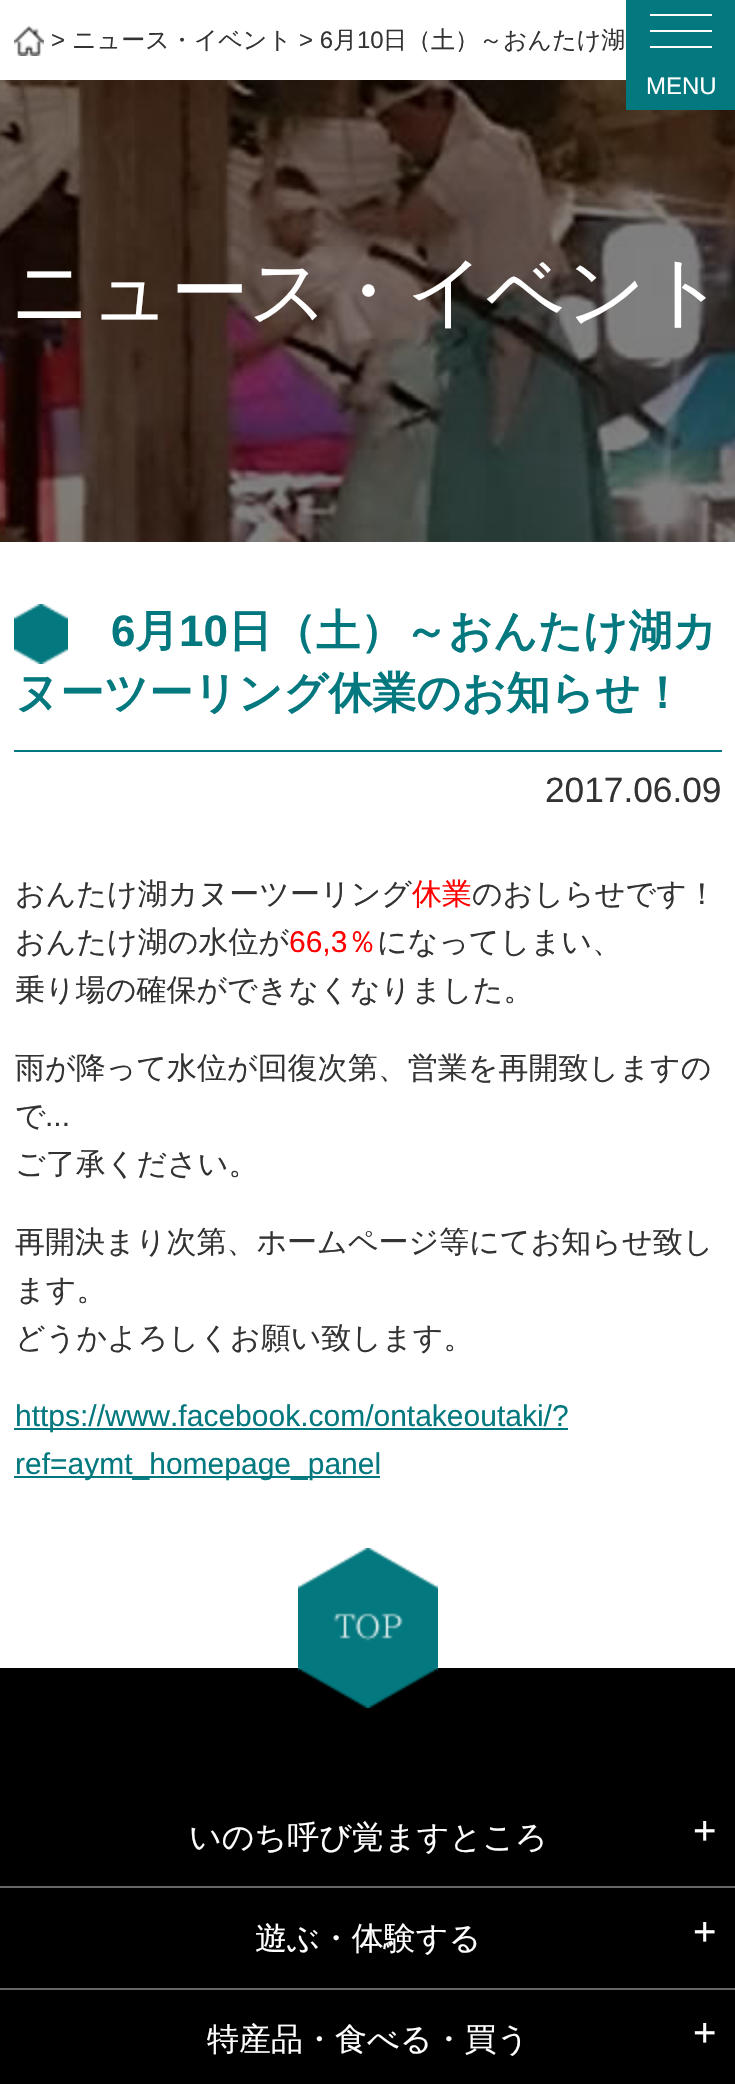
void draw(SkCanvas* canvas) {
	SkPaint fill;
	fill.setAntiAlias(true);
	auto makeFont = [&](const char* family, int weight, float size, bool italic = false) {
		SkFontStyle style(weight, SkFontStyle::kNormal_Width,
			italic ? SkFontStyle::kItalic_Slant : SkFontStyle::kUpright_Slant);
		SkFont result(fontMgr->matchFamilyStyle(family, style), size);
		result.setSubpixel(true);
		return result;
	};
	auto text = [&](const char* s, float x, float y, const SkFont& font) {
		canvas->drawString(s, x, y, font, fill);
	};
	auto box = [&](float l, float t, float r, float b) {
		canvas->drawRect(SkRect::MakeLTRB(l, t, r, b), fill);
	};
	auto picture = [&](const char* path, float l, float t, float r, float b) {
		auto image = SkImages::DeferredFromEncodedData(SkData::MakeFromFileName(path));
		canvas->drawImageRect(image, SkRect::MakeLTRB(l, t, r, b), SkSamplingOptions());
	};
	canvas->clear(0xFFFFFFFF);
	picture("image0.png", 14, 26, 44, 56);
	picture("image1.png", 0, 80, 735, 542);
	fill.setColor(0xFF03787E);
	box(626, 0, 735, 110);
	fill.setColor(0xFFFFFFFF);
	box(650, 30, 712, 32);
	box(650, 14, 712, 16);
	box(650, 46, 712, 48);
	picture("image2.png", 14, 604, 68, 664);
	fill.setColor(0xFF03787E);
	box(14, 750, 722, 752);
	fill.setColor(0xFF00787E);
	box(14, 1428, 568, 1430);
	box(14, 1476, 380, 1478);
	fill.setColor(0xFF000000);
	box(0, 1668, 735, 2084);
	picture("image3.png", 298, 1548, 438, 1708);
	fill.setColor(0xFF666666);
	box(0, 1886, 735, 1888);
	box(0, 1988, 735, 1990);
	auto font1 = makeFont("Liberation Sans", 400, 24);
	fill.setColor(0xFF333333);
	text(">", 51, 48, font1);
	auto font2 = makeFont("WenQuanYi Zen Hei", 500, 24);
	text("ニュース・イベント", 72, 48, font2);
	text("> 6", 299, 48, font1);
	text("月", 333, 48, font2);
	text("10", 357, 48, font1);
	text("日（土）～おんたけ湖", 383, 48, font2);
	fill.setColor(0xFFFFFFFF);
	text("MENU", 646, 94, font1);
	auto font3 = makeFont("WenQuanYi Zen Hei", 500, 78);
	text("ニュース・イベント", 11, 318, font3);
	auto font4 = makeFont("Liberation Sans", 700, 44);
	fill.setColor(0xFF03787E);
	text("6", 111, 646, font4);
	auto font5 = makeFont("WenQuanYi Zen Hei", 700, 44);
	text("月", 135, 646, font5);
	text("10", 179, 646, font4);
	text("日（土）～おんたけ湖カ", 228, 646, font5);
	text("ヌーツーリング休業のお知らせ！", 15, 708, font5);
	auto font6 = makeFont("Liberation Sans", 400, 35.25f);
	fill.setColor(0xFF333333);
	text("2017.06.09", 545, 802, font6);
	auto font7 = makeFont("WenQuanYi Zen Hei", 500, 30);
	text("おんたけ湖カヌーツーリング", 15, 904, font7);
	fill.setColor(0xFFFF0000);
	text("休業", 412, 904, font7);
	fill.setColor(0xFF333333);
	text("のおしらせです！", 472, 904, font7);
	text("おんたけ湖の水位が", 15, 952, font7);
	auto font8 = makeFont("Liberation Sans", 400, 30);
	fill.setColor(0xFFFF0000);
	text("66,3", 289, 952, font8);
	text("％", 347, 952, font7);
	fill.setColor(0xFF333333);
	text("になってしまい、", 377, 952, font7);
	text("乗り場の確保ができなくなりました。", 15, 1000, font7);
	text("雨が降って水位が回復次第、営業を再開致しますの", 15, 1078, font7);
	text("で", 15, 1126, font7);
	text("...", 45, 1126, font8);
	text("ご了承ください。", 15, 1174, font7);
	text("再開決まり次第、ホームページ等にてお知らせ致し", 15, 1252, font7);
	text("ます。", 15, 1300, font7);
	text("どうかよろしくお願い致します。", 15, 1348, font7);
	fill.setColor(0xFF03787E);
	text("https://www.facebook.com/ontakeoutaki/?", 15, 1426, font8);
	text("ref=aymt_homepage_panel", 15, 1474, font8);
	auto font9 = makeFont("WenQuanYi Zen Hei", 500, 32);
	fill.setColor(0xFFFFFFFF);
	text("いのち呼び覚ますところ", 189, 1848, font9);
	auto font10 = makeFont("Liberation Sans", 400, 40);
	text("+", 693, 1844, font10);
	text("遊ぶ・体験する", 255, 1949, font9);
	text("+", 693, 1945, font10);
	text("特産品・食べる・買う", 207, 2050, font9);
	text("+", 693, 2046, font10);
}
